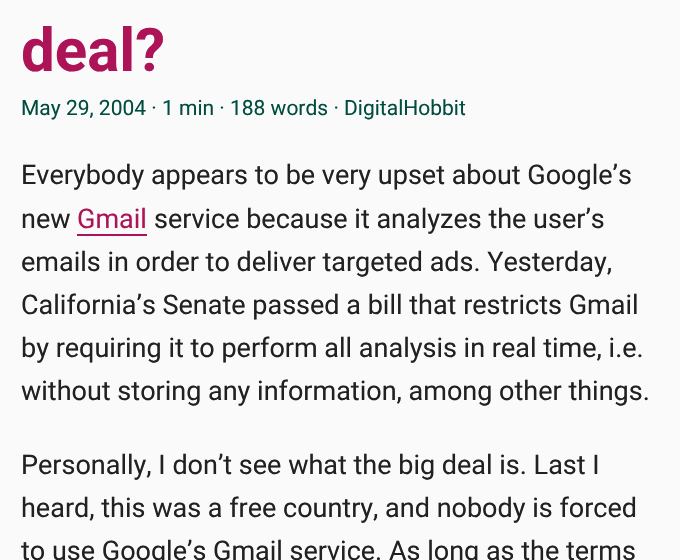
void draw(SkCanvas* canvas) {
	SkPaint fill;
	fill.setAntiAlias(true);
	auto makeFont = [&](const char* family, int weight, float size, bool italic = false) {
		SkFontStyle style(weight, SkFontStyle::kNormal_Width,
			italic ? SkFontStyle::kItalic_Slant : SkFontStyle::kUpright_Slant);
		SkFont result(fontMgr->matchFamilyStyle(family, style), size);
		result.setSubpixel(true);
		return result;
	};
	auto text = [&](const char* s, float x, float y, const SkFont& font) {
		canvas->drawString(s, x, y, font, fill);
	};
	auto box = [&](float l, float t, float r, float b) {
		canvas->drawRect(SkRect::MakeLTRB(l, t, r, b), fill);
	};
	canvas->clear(0xFFFAFAFA);
	fill.setColor(0xFFAD1457);
	box(77, 234, 147, 236);
	auto font1 = makeFont("Roboto", 700, 60);
	text("deal?", 21, 71, font1);
	auto font2 = makeFont("Roboto", 400, 21);
	fill.setColor(0xFF004D40);
	text("May 29, 2004 · 1 min · 188 words · DigitalHobbit", 21, 115, font2);
	auto font3 = makeFont("Roboto", 400, 27);
	fill.setColor(0xFF212121);
	text("Everybody appears to be very upset about Google’s", 21, 184, font3);
	text("new", 21, 228, font3);
	fill.setColor(0xFFAD1457);
	text("Gmail", 77, 228, font3);
	fill.setColor(0xFF212121);
	text("service because it analyzes the user’s", 154, 228, font3);
	text("emails in order to deliver targeted ads. Yesterday,", 21, 271, font3);
	text("California’s Senate passed a bill that restricts Gmail", 21, 314, font3);
	text("by requiring it to perform all analysis in real time, i.e.", 21, 357, font3);
	text("without storing any information, among other things.", 21, 400, font3);
	text("Personally, I don’t see what the big deal is. Last I", 21, 474, font3);
	text("heard, this was a free country, and nobody is forced", 21, 517, font3);
	text("to use Google’s Gmail service. As long as the terms", 21, 560, font3);
}
